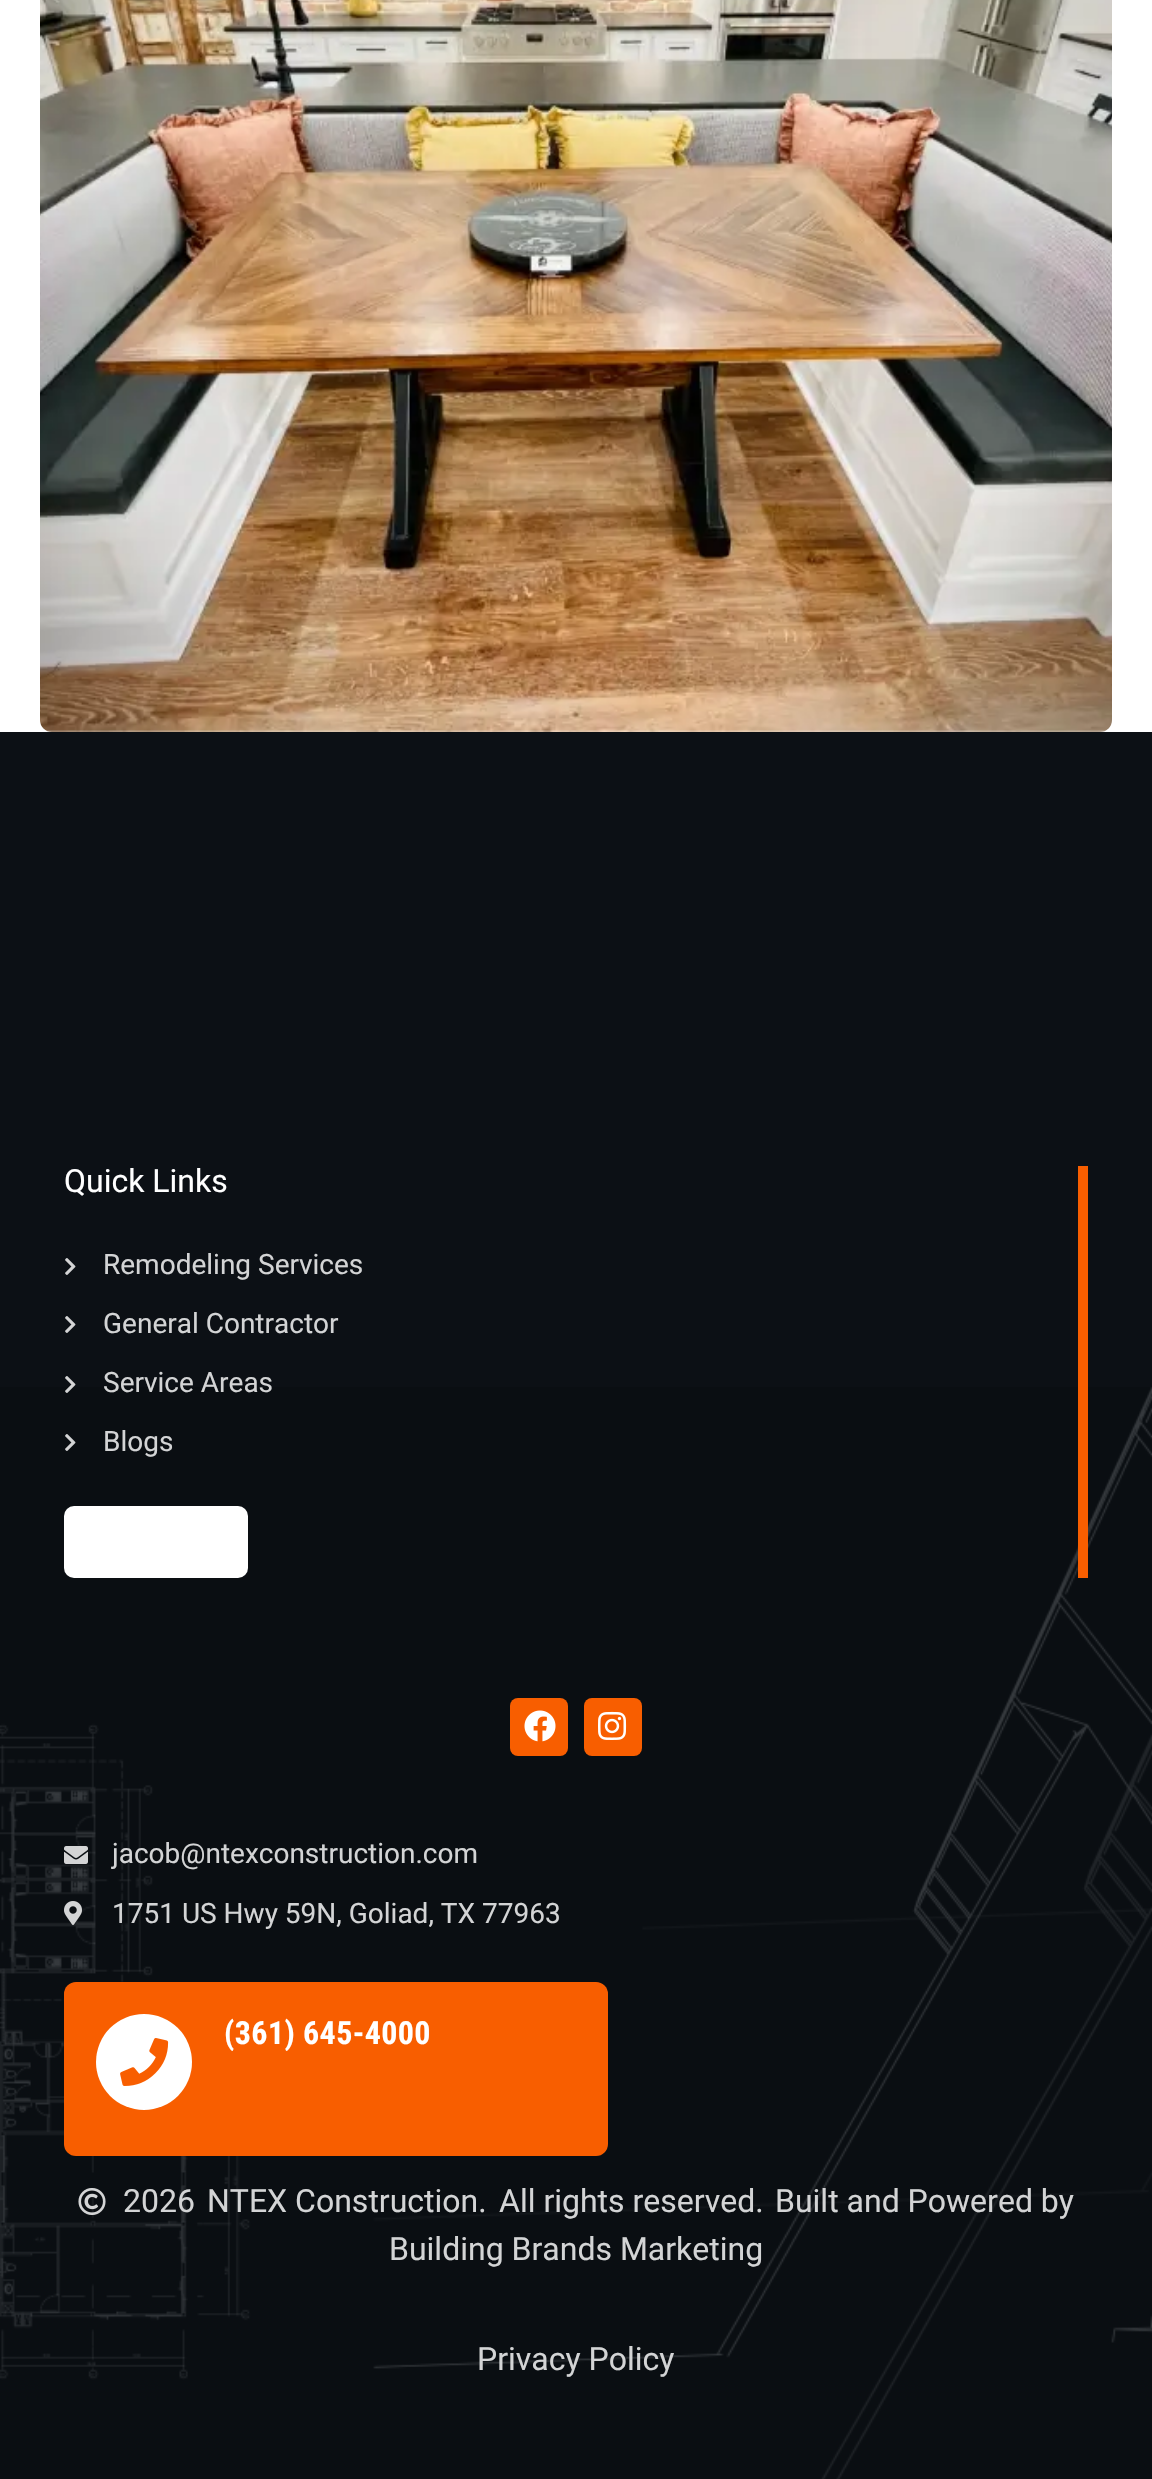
void draw(SkCanvas* canvas) {
	SkPaint fill;
	fill.setAntiAlias(true);
	auto makeFont = [&](const char* family, int weight, float size, bool italic = false) {
		SkFontStyle style(weight, SkFontStyle::kNormal_Width,
			italic ? SkFontStyle::kItalic_Slant : SkFontStyle::kUpright_Slant);
		SkFont result(fontMgr->matchFamilyStyle(family, style), size);
		result.setSubpixel(true);
		return result;
	};
	auto text = [&](const char* s, float x, float y, const SkFont& font) {
		canvas->drawString(s, x, y, font, fill);
	};
	auto spacedText = [&](const char* s, float x, float y, const SkFont& font, const SkPaint& ink, float letter, float word) {
		std::vector<SkGlyphID> glyphs(font.countText(s, strlen(s), SkTextEncoding::kUTF8));
		std::vector<float> xs(glyphs.size());
		font.textToGlyphs(s, strlen(s), SkTextEncoding::kUTF8, glyphs);
		font.getXPos(glyphs, xs, x);
		float extra = 0;
		for (size_t i = 0; i < glyphs.size(); i++) {
			xs[i] += extra;
			extra += letter + word * (glyphs[i] == font.unicharToGlyph(' '));
		}
		canvas->drawTextBlob(SkTextBlob::MakeFromPosHGlyphs(glyphs, xs, y, font), 0, 0, ink);
	};
	auto box = [&](float l, float t, float r, float b) {
		canvas->drawRect(SkRect::MakeLTRB(l, t, r, b), fill);
	};
	auto roundBox = [&](float l, float t, float r, float b, float radius) {
		canvas->drawRoundRect(SkRect::MakeLTRB(l, t, r, b), radius, radius, fill);
	};
	auto picture = [&](const char* path, float l, float t, float r, float b) {
		auto image = SkImages::DeferredFromEncodedData(SkData::MakeFromFileName(path));
		canvas->drawImageRect(image, SkRect::MakeLTRB(l, t, r, b), SkSamplingOptions());
	};
	canvas->clear(0xFFFFFFFF);
	picture("image0.png", 40, 0, 1112, 732);
	fill.setColor(0xFF0C1015);
	box(0, 732, 1152, 2479);
	picture("image10.png", 0, 1387, 1152, 2479);
	fill.setColor(0xFFF85E00);
	box(1078, 1166, 1088, 1578);
	picture("image1.png", 65, 1258, 76, 1275);
	picture("image1.png", 65, 1316, 76, 1333);
	picture("image2.png", 65, 1376, 76, 1393);
	picture("image3.png", 65, 1434, 76, 1451);
	fill.setColor(0xFFFFFFFF);
	roundBox(64, 1506, 248, 1578, 10);
	fill.setColor(0xFFF85E00);
	roundBox(510, 1698, 568, 1756, 8);
	picture("image4.png", 524, 1710, 556, 1742);
	roundBox(584, 1698, 642, 1756, 8);
	picture("image5.png", 598, 1711, 627, 1740);
	picture("image6.png", 64, 1846, 88, 1864);
	picture("image7.png", 64, 1901, 82, 1925);
	roundBox(64, 1982, 608, 2156, 12);
	fill.setColor(0xFFFFFFFF);
	canvas->drawCircle(144, 2062, 48, fill);
	picture("image8.png", 120, 2038, 169, 2086);
	picture("image9.png", 78, 2188, 106, 2215);
	auto font1 = makeFont("Roboto", 400, 32);
	text("Quick Links", 64, 1192, font1);
	auto font2 = makeFont("Roboto", 400, 28);
	fill.setColor(0xFFD3D4D5);
	text("Remodeling Services", 103, 1274, font2);
	text("General Contractor", 103, 1333, font2);
	text("Service Areas", 103, 1392, font2);
	text("Blogs", 103, 1451, font2);
	text("jacob@ntexconstruction.com", 112, 1863, font2);
	text("1751 US Hwy 59N, Goliad, TX 77963", 112, 1923, font2);
	auto font3 = makeFont("Roboto Condensed", 700, 32);
	fill.setColor(0xFFFFFFFF);
	spacedText("(361) 645-4000", 224, 2044, font3, fill, 0.4f, 0);
	fill.setColor(0xFFD3D4D5);
	text("2026", 123, 2212, font1);
	text("NTEX Construction.", 207, 2212, font1);
	text("All rights reserved.", 499, 2212, font1);
	text("Built and Powered by", 775, 2212, font1);
	text("Building Brands Marketing", 389, 2260, font1);
	text("Privacy Policy", 477, 2370, font1);
}
